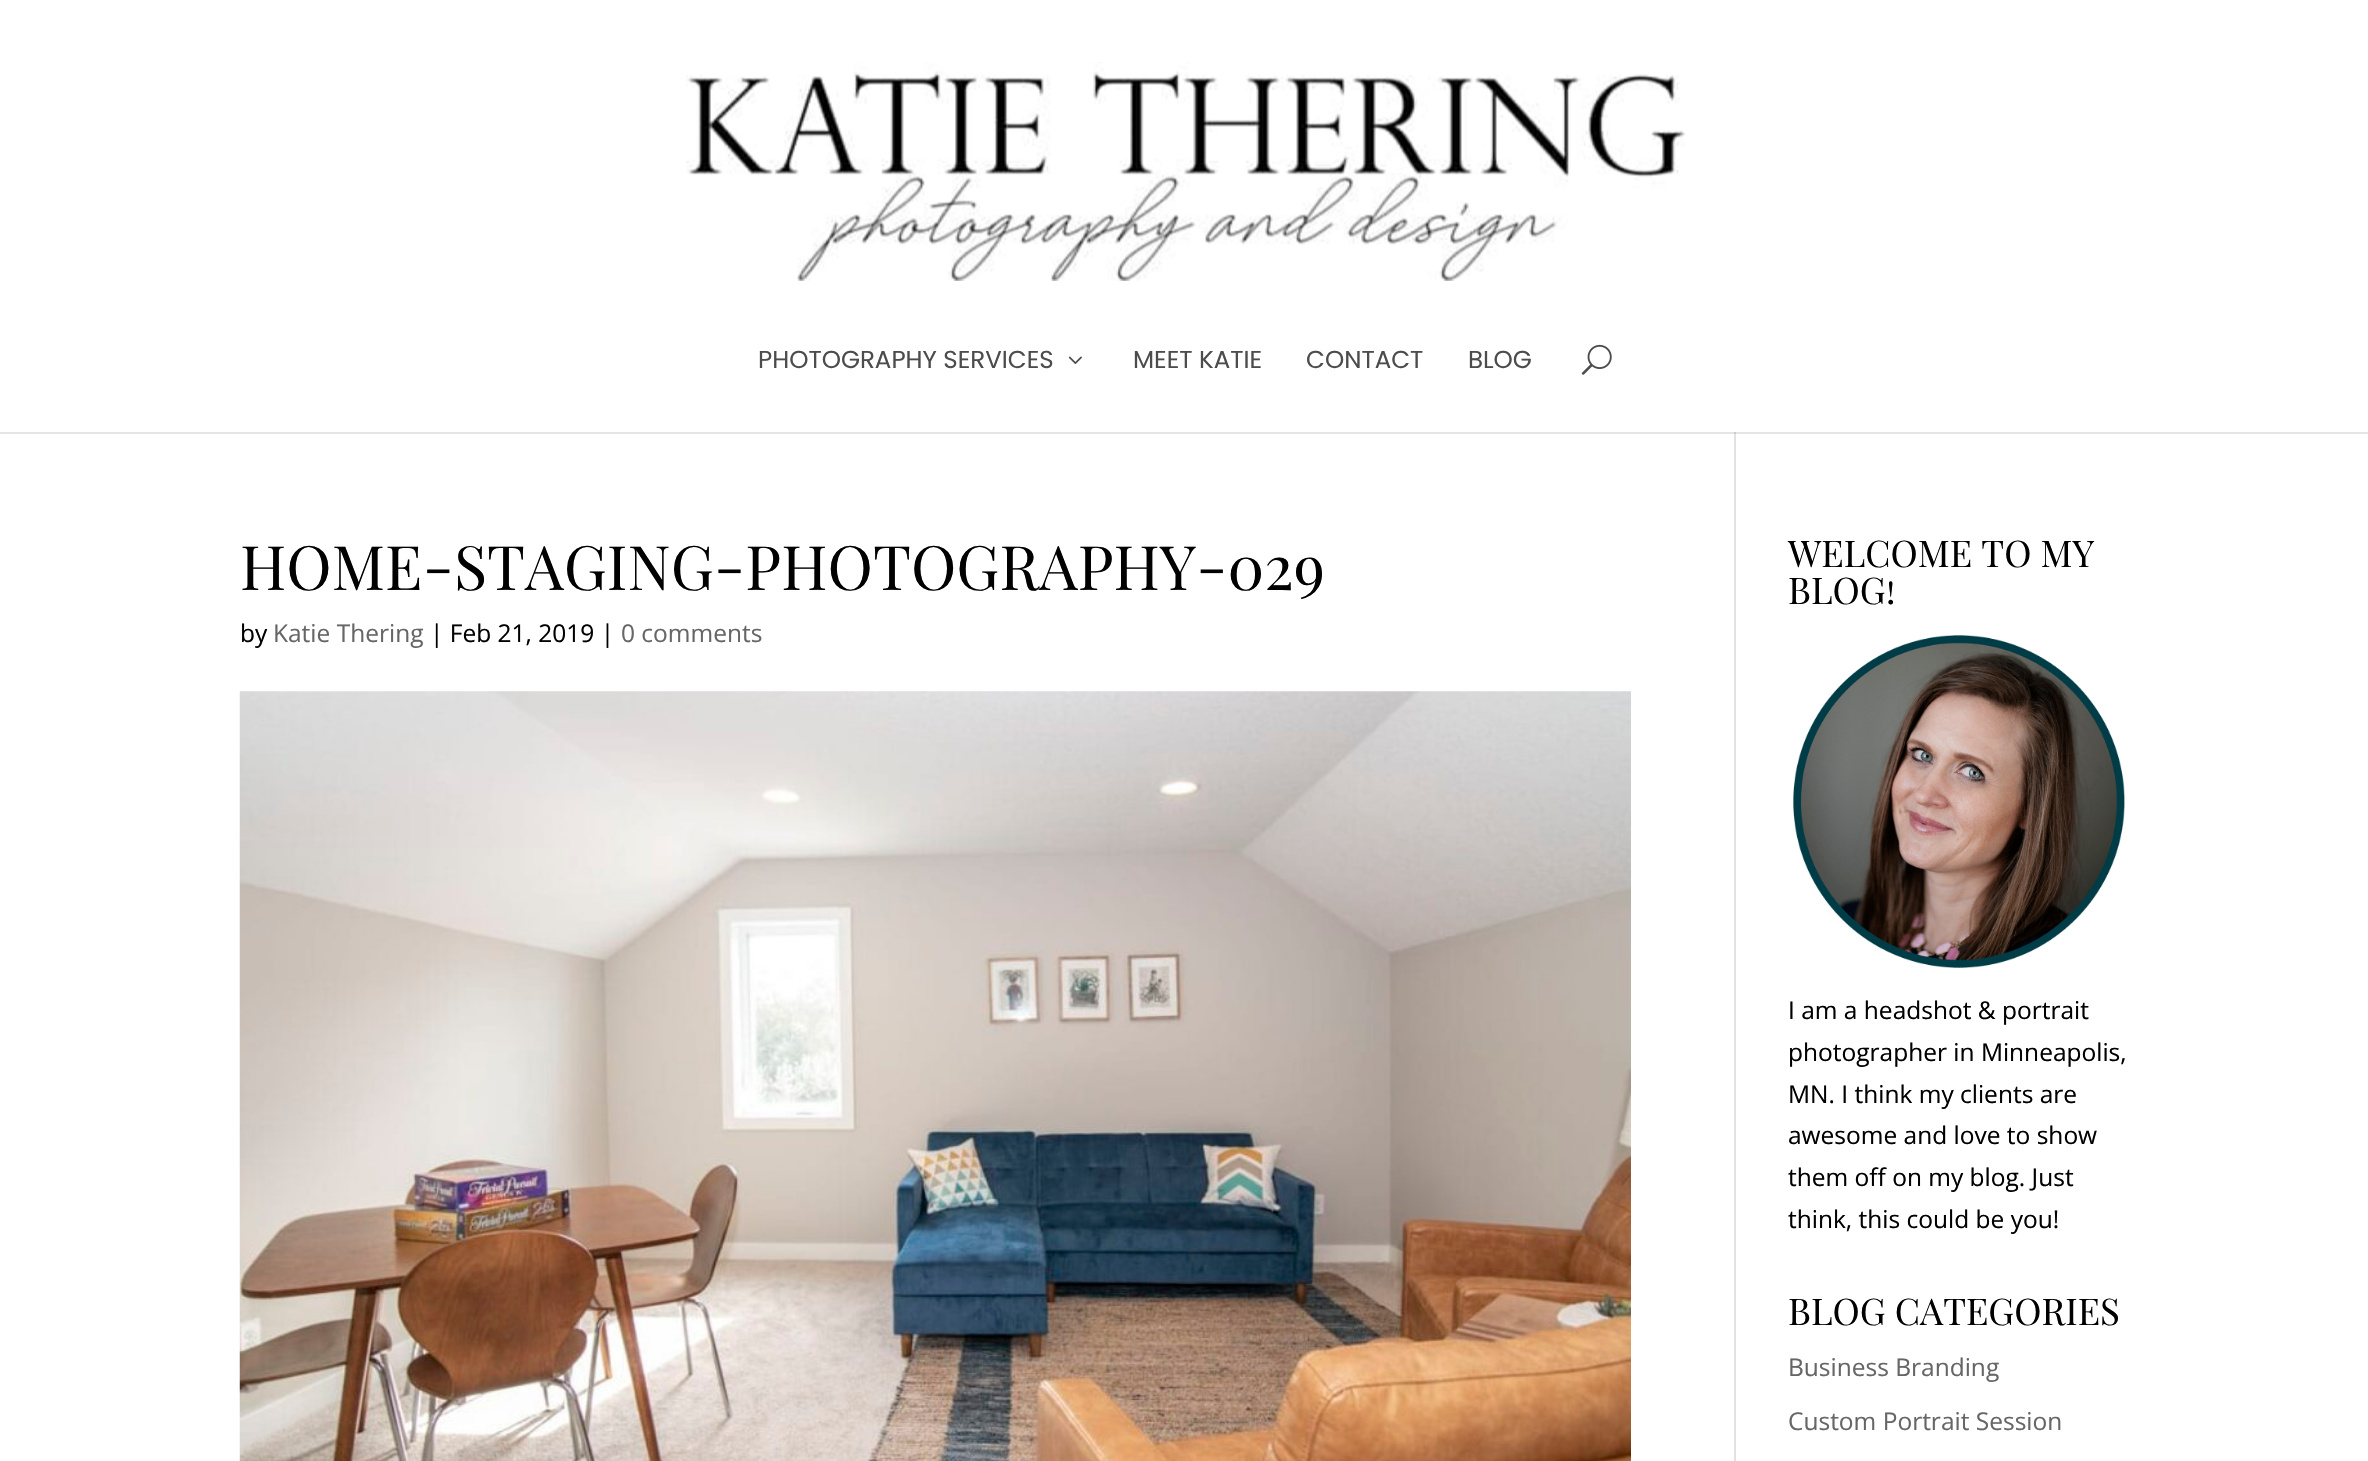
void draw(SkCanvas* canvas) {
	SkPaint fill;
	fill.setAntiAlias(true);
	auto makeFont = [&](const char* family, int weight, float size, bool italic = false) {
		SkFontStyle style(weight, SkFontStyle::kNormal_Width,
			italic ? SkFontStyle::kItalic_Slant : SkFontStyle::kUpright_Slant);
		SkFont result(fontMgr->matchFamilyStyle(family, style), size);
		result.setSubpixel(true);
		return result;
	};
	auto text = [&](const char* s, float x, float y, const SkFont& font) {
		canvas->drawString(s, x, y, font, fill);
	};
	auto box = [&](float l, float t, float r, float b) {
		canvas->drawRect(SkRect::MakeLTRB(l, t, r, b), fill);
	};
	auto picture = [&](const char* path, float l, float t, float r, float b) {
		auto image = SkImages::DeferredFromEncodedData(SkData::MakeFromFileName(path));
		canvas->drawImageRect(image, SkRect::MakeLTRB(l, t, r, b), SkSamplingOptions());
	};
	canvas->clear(0xFFFFFFFF);
	fill.setColor(0xFFE2E2E2);
	box(1734, 432, 1736, 1461);
	fill.setColor(0x1A000000);
	canvas->drawPath(SkPathBuilder().moveTo(0, 432).lineTo(0, 434).lineTo(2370, 434).lineTo(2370, 2).lineTo(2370, 432).close().detach(), fill);
	picture("image0.png", 686, 62, 1686, 281);
	picture("image1.png", 1068, 356, 1082, 364);
	picture("image2.png", 1581, 344, 1612, 375);
	picture("image3.png", 239, 691, 1631, 1461);
	picture("image4.png", 1793, 635, 2125, 969);
	auto font1 = makeFont("Poppins", 400, 24.5f);
	fill.setColor(0xFF4C4C4C);
	text("PHOTOGRAPHY SERVICES", 758, 368, font1);
	text("MEET KATIE", 1133, 368, font1);
	text("CONTACT", 1306, 368, font1);
	text("BLOG", 1468, 368, font1);
	auto font2 = makeFont("Playfair Display SC", 400, 61.25f);
	fill.setColor(0xFF000000);
	text("HOME-STAGING-PHOTOGRAPHY-029", 240, 590, font2);
	auto font3 = makeFont("Open Sans", 400, 24.5f);
	text("by", 240, 642, font3);
	fill.setColor(0xFF666666);
	text("Katie Thering", 273, 642, font3);
	fill.setColor(0xFF000000);
	text("| Feb 21, 2019 |", 430, 642, font3);
	fill.setColor(0xFF666666);
	text("0 comments", 621, 642, font3);
	auto font4 = makeFont("Playfair Display SC", 400, 36.75f);
	fill.setColor(0xFF000000);
	text("WELCOME TO MY", 1788, 567, font4);
	text("BLOG!", 1788, 604, font4);
	text("I am a headshot & portrait", 1788, 1019, font3);
	text("photographer in Minneapolis,", 1788, 1061, font3);
	text("MN. I think my clients are", 1788, 1103, font3);
	text("awesome and love to show", 1788, 1144, font3);
	text("them off on my blog. Just", 1788, 1186, font3);
	text("think, this could be you!", 1788, 1228, font3);
	text("BLOG CATEGORIES", 1788, 1325, font4);
	fill.setColor(0xFF666666);
	text("Business Branding", 1788, 1376, font3);
	text("Custom Portrait Session", 1788, 1430, font3);
}
